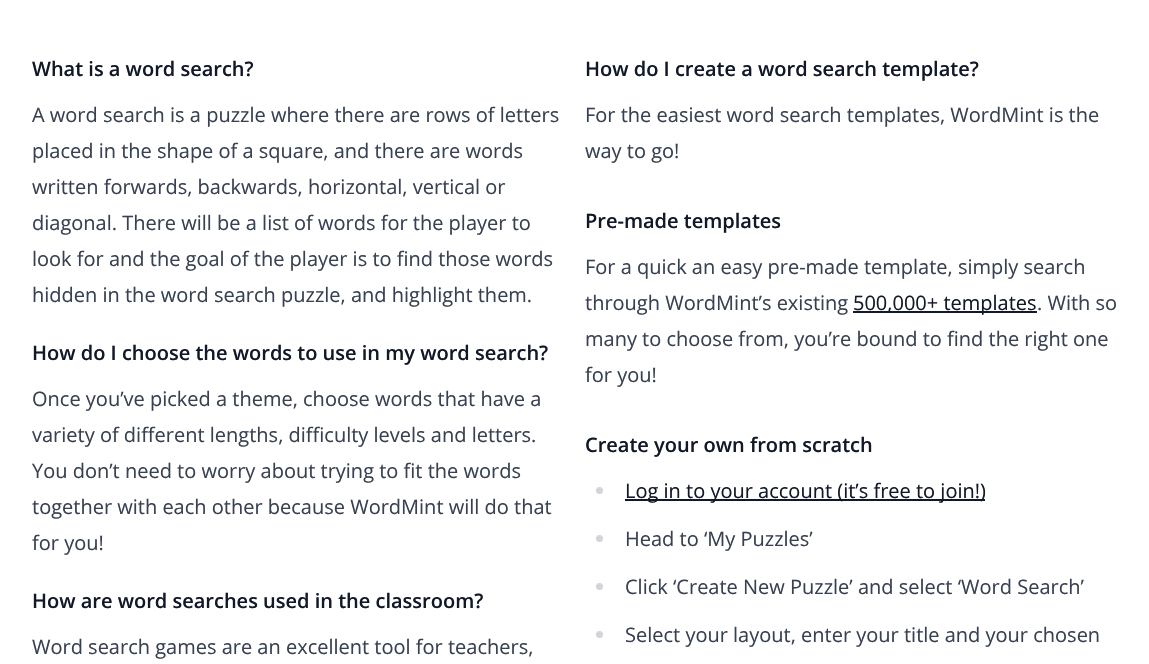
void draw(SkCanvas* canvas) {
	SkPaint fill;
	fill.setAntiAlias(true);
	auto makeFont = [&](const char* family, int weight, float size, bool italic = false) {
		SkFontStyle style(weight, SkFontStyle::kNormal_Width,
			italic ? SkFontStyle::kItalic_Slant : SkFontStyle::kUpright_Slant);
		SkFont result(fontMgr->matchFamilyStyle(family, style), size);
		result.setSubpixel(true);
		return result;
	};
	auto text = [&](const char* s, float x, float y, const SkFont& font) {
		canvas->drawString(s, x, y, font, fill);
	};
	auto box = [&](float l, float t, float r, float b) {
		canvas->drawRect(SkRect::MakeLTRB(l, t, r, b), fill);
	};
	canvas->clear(0xFFFFFFFF);
	fill.setColor(0xFF111827);
	box(853, 311, 1037, 313);
	fill.setColor(0xFFD1D5DB);
	canvas->drawCircle(599.5f, 490.5f, 3.5f, fill);
	fill.setColor(0xFF111827);
	box(625, 499, 985, 501);
	fill.setColor(0xFFD1D5DB);
	canvas->drawCircle(599.5f, 538.5f, 3.5f, fill);
	canvas->drawCircle(599.5f, 586.5f, 3.5f, fill);
	canvas->drawCircle(599.5f, 634.5f, 3.5f, fill);
	auto font1 = makeFont("Open Sans", 600, 20);
	fill.setColor(0xFF111827);
	text("What is a word search?", 32, 76, font1);
	auto font2 = makeFont("Open Sans", 400, 20);
	fill.setColor(0xFF374151);
	text("A word search is a puzzle where there are rows of letters", 32, 122, font2);
	text("placed in the shape of a square, and there are words", 32, 158, font2);
	text("written forwards, backwards, horizontal, vertical or", 32, 194, font2);
	text("diagonal. There will be a list of words for the player to", 32, 230, font2);
	text("look for and the goal of the player is to find those words", 32, 266, font2);
	text("hidden in the word search puzzle, and highlight them.", 32, 302, font2);
	fill.setColor(0xFF111827);
	text("How do I create a word search template?", 585, 76, font1);
	fill.setColor(0xFF374151);
	text("For the easiest word search templates, WordMint is the", 585, 122, font2);
	text("way to go!", 585, 158, font2);
	fill.setColor(0xFF111827);
	text("Pre-made templates", 585, 228, font1);
	fill.setColor(0xFF374151);
	text("For a quick an easy pre-made template, simply search", 585, 274, font2);
	text("through WordMint’s existing", 585, 310, font2);
	fill.setColor(0xFF111827);
	text("500,000+ templates", 853, 310, font2);
	fill.setColor(0xFF374151);
	text(". With so", 1037, 310, font2);
	text("many to choose from, you’re bound to find the right one", 585, 346, font2);
	text("for you!", 585, 382, font2);
	fill.setColor(0xFF111827);
	text("Create your own from scratch", 585, 452, font1);
	text("Log in to your account (it’s free to join!)", 625, 498, font2);
	fill.setColor(0xFF374151);
	text("Head to ‘My Puzzles’", 625, 546, font2);
	text("Click ‘Create New Puzzle’ and select ‘Word Search’", 625, 594, font2);
	text("Select your layout, enter your title and your chosen", 625, 642, font2);
	fill.setColor(0xFF111827);
	text("How do I choose the words to use in my word search?", 32, 360, font1);
	fill.setColor(0xFF374151);
	text("Once you’ve picked a theme, choose words that have a", 32, 406, font2);
	text("variety of different lengths, difficulty levels and letters.", 32, 442, font2);
	text("You don’t need to worry about trying to fit the words", 32, 478, font2);
	text("together with each other because WordMint will do that", 32, 514, font2);
	text("for you!", 32, 550, font2);
	fill.setColor(0xFF111827);
	text("How are word searches used in the classroom?", 32, 608, font1);
	fill.setColor(0xFF374151);
	text("Word search games are an excellent tool for teachers,", 32, 654, font2);
}
